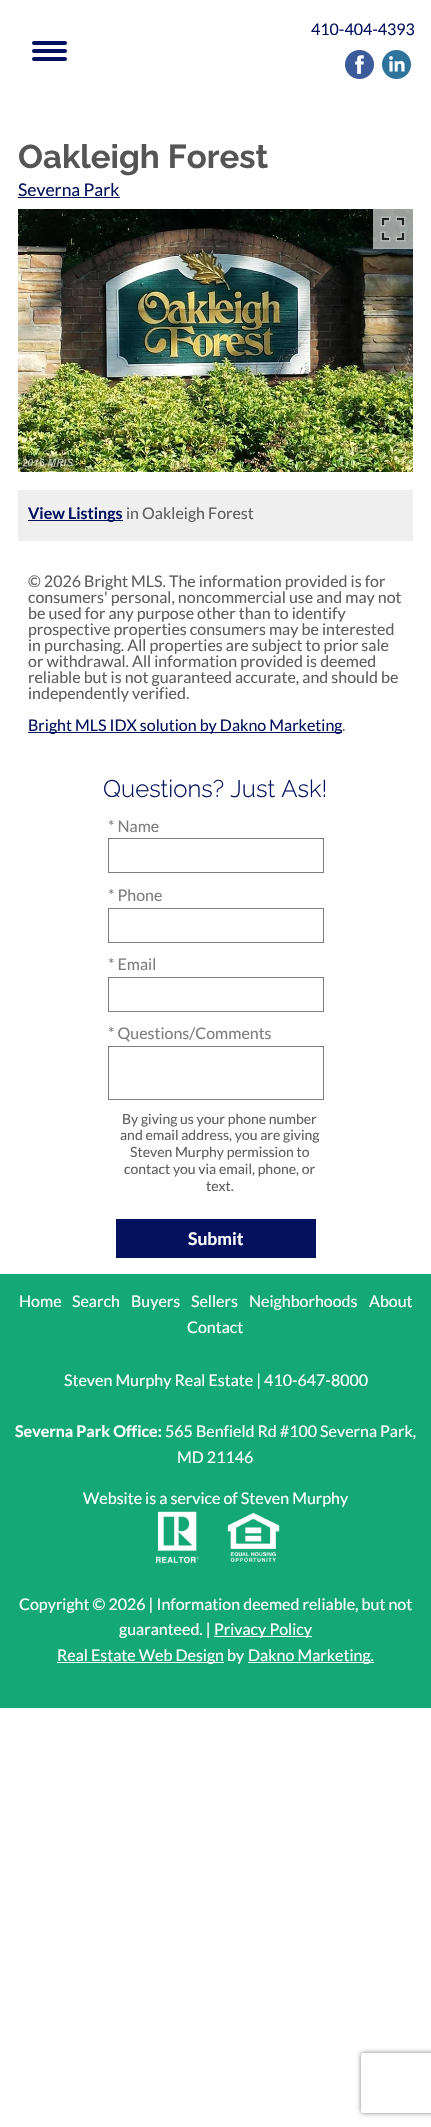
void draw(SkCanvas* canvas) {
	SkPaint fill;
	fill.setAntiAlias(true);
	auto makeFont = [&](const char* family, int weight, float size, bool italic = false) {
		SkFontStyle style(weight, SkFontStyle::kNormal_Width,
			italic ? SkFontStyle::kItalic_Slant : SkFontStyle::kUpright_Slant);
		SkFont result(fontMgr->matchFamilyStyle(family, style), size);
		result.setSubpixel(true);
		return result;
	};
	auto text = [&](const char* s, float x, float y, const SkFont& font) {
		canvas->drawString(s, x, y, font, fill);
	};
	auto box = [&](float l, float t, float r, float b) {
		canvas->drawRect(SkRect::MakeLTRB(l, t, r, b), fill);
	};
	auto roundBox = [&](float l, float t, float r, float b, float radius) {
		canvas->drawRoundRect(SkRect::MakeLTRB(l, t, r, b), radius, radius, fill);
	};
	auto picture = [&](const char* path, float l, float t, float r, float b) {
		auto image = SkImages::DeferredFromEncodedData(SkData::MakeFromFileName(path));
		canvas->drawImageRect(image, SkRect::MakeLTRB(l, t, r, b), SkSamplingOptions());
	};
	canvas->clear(0xFFFFFFFF);
	picture("image0.png", 345, 50, 374, 79);
	picture("image1.png", 382, 50, 411, 79);
	fill.setColor(0xFF03115E);
	roundBox(32, 41, 67, 45, 2);
	roundBox(32, 49, 67, 53, 2);
	roundBox(32, 57, 67, 61, 2);
	box(18, 197, 120, 198);
	picture("image2.png", 18, 209, 413, 472);
	fill.setColor(0x99FFFFFF);
	box(373, 209, 413, 249);
	picture("image3.png", 380, 216, 406, 242);
	fill.setColor(0xFFEFEFEF);
	box(18, 490, 413, 541);
	fill.setColor(0xFF03115E);
	box(28, 520, 123, 521);
	box(28, 732, 342, 733);
	fill.setStyle(SkPaint::kStroke_Style);
	fill.setStrokeWidth(1);
	fill.setColor(0xFF7D7D7D);
	canvas->drawRect(SkRect::MakeLTRB(108.5f, 838.5f, 323.5f, 872.5f), fill);
	canvas->drawRect(SkRect::MakeLTRB(108.5f, 908.5f, 323.5f, 942.5f), fill);
	canvas->drawRect(SkRect::MakeLTRB(108.5f, 977.5f, 323.5f, 1011.5f), fill);
	canvas->drawRect(SkRect::MakeLTRB(108.5f, 1046.5f, 323.5f, 1099.5f), fill);
	fill.setStyle(SkPaint::kFill_Style);
	fill.setColor(0xFF03115E);
	box(116, 1219, 316, 1258);
	fill.setColor(0xFF14A877);
	box(0, 1274, 431, 1708);
	picture("image4.png", 156, 1511, 199, 1564);
	picture("image5.png", 227, 1512, 280, 1562);
	fill.setColor(0xFFFFFFFF);
	box(214, 1636, 312, 1637);
	box(57, 1662, 224, 1663);
	box(248, 1662, 374, 1663);
	canvas->save();
	canvas->clipPath(SkPathBuilder(SkPathFillType::kEvenOdd).moveTo(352, 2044).lineTo(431, 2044).lineTo(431, 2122).lineTo(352, 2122).close().moveTo(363, 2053).lineTo(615, 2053).cubicTo(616, 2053, 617, 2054, 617, 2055).lineTo(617, 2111).cubicTo(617, 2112, 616, 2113, 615, 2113).lineTo(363, 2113).cubicTo(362, 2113, 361, 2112, 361, 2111).lineTo(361, 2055).cubicTo(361, 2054, 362, 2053, 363, 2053).close().detach(), true);
	fill.setColor(0xFF808080);
	fill.setMaskFilter(SkMaskFilter::MakeBlur(kNormal_SkBlurStyle, 2.5f));
	canvas->drawRoundRect(SkRect::MakeLTRB(361, 2053, 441, 2113), 2, 2, fill);
	fill.setMaskFilter(nullptr);
	canvas->restore();
	auto font1 = makeFont("Lato", 400, 16);
	fill.setColor(0xFF03115E);
	text("410-404-4393", 311, 35, font1);
	auto font2 = makeFont("Raleway", 700, 33);
	fill.setColor(0xFF555555);
	text("Oakleigh Forest", 18, 168, font2);
	auto font3 = makeFont("Lato", 400, 17.5f);
	fill.setColor(0xFF03115E);
	text("Severna Park", 18, 196, font3);
	auto font4 = makeFont("Lato", 700, 16);
	text("View Listings", 28, 519, font4);
	fill.setColor(0xFF5E5E5E);
	text("in Oakleigh Forest", 126, 519, font1);
	text("© 2026 Bright MLS. The information provided is for", 28, 587, font1);
	text("consumers' personal, noncommercial use and may not", 28, 603, font1);
	text("be used for any purpose other than to identify", 28, 619, font1);
	text("prospective properties consumers may be interested", 28, 635, font1);
	text("in purchasing. All properties are subject to prior sale", 28, 651, font1);
	text("or withdrawal. All information provided is deemed", 28, 667, font1);
	text("reliable but is not guaranteed accurate, and should be", 28, 683, font1);
	text("independently verified.", 28, 699, font1);
	fill.setColor(0xFF03115E);
	text("Bright MLS IDX solution by Dakno Marketing", 28, 731, font1);
	fill.setColor(0xFF5E5E5E);
	text(".", 342, 731, font1);
	auto font5 = makeFont("Raleway", 300, 24);
	fill.setColor(0xFF03115E);
	text("Questions? Just Ask!", 103, 797, font5);
	fill.setColor(0xFF7D7D7D);
	text("* Name", 108, 832, font1);
	text("* Phone", 108, 901, font1);
	text("* Email", 108, 970, font1);
	text("* Questions/Comments", 108, 1039, font1);
	auto font6 = makeFont("Lato", 400, 14);
	fill.setColor(0xFF5E5E5E);
	text("By giving us your phone number", 122, 1124, font6);
	text("and email address, you are giving", 120, 1140, font6);
	text("Steven Murphy permission to", 130, 1157, font6);
	text("contact you via email, phone, or", 124, 1174, font6);
	text("text.", 206, 1191, font6);
	auto font7 = makeFont("Lato", 700, 17.5f);
	fill.setColor(0xFFFFFFFF);
	text("Submit", 188, 1245, font7);
	text("Home", 19, 1307, font1);
	text("Search", 72, 1307, font1);
	text("Buyers", 131, 1307, font1);
	text("Sellers", 191, 1307, font1);
	text("Neighborhoods", 249, 1307, font1);
	text("About", 369, 1307, font1);
	text("Contact", 187, 1333, font1);
	text("Steven Murphy Real Estate | 410-647-8000", 64, 1386, font1);
	text("Severna Park Office:", 15, 1437, font4);
	text("565 Benfield Rd #100 Severna Park,", 165, 1437, font1);
	text("MD 21146", 177, 1463, font1);
	text("Website is a service of Steven Murphy", 83, 1504, font1);
	text("Copyright © 2026 | Information deemed reliable, but not", 19, 1610, font1);
	text("guaranteed. |", 119, 1635, font1);
	text("Privacy Policy", 214, 1635, font1);
	text("Real Estate Web Design by", 57, 1661, font1);
	text("Dakno Marketing.", 248, 1661, font1);
}
